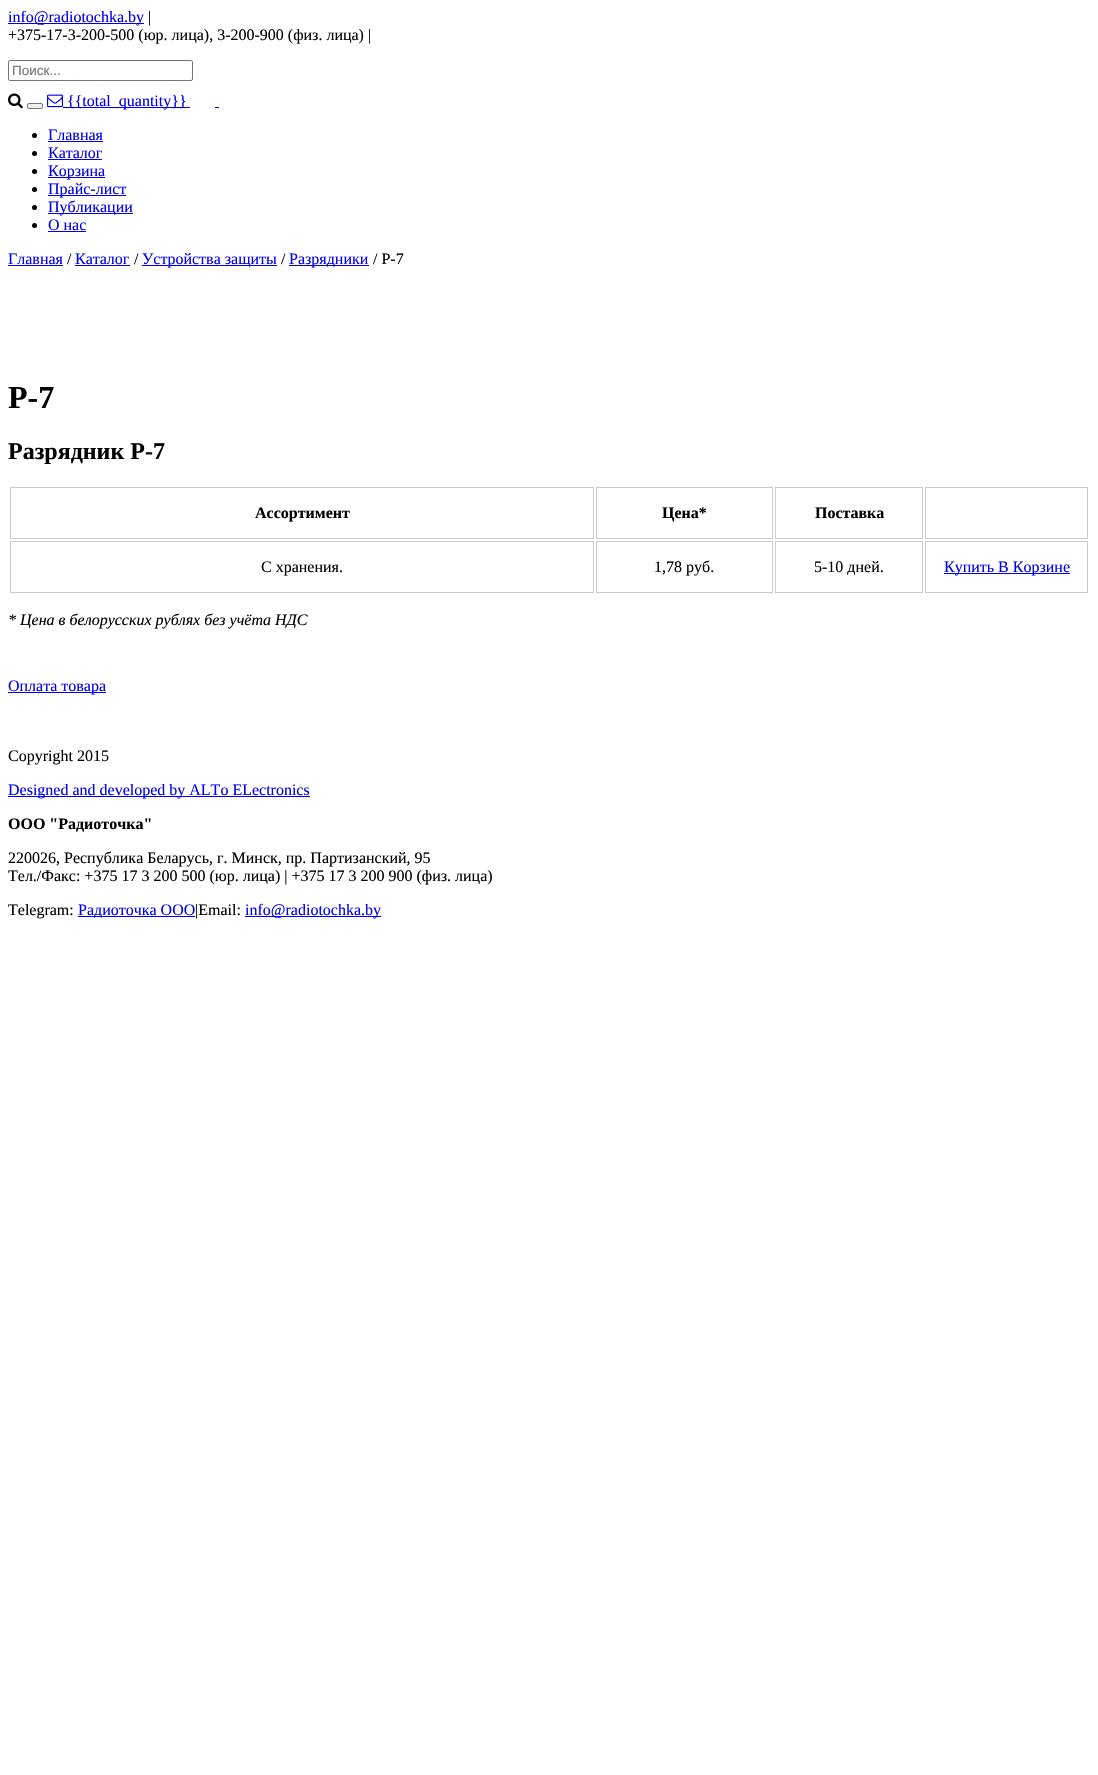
void draw(SkCanvas* canvas) {
	SkPaint fill;
	fill.setAntiAlias(true);
	auto makeFont = [&](const char* family, int weight, float size, bool italic = false) {
		SkFontStyle style(weight, SkFontStyle::kNormal_Width,
			italic ? SkFontStyle::kItalic_Slant : SkFontStyle::kUpright_Slant);
		SkFont result(fontMgr->matchFamilyStyle(family, style), size);
		result.setSubpixel(true);
		return result;
	};
	auto text = [&](const char* s, float x, float y, const SkFont& font) {
		canvas->drawString(s, x, y, font, fill);
	};
	auto box = [&](float l, float t, float r, float b) {
		canvas->drawRect(SkRect::MakeLTRB(l, t, r, b), fill);
	};
	auto picture = [&](const char* path, float l, float t, float r, float b) {
		auto image = SkImages::DeferredFromEncodedData(SkData::MakeFromFileName(path));
		canvas->drawImageRect(image, SkRect::MakeLTRB(l, t, r, b), SkSamplingOptions());
	};
	canvas->clear(0xFFFFFFFF);
	fill.setColor(0xFF0000EE);
	box(8, 23, 144, 24);
	fill.setStyle(SkPaint::kStroke_Style);
	fill.setStrokeWidth(1);
	fill.setColor(0xFF767676);
	canvas->drawRoundRect(SkRect::MakeLTRB(8.5f, 60.5f, 192.5f, 80.5f), 1.5f, 1.5f, fill);
	picture("image0.png", 8, 93, 23, 109);
	picture("image1.png", 47, 94, 63, 108);
	fill.setStyle(SkPaint::kFill_Style);
	fill.setColor(0xFF0000EE);
	box(63, 107, 190, 108);
	fill.setColor(0xFFEFEFEF);
	canvas->drawRoundRect(SkRect::MakeLTRB(27.5f, 103.5f, 42.5f, 108.5f), 1.5f, 1.5f, fill);
	fill.setStyle(SkPaint::kStroke_Style);
	fill.setColor(0xFF767676);
	canvas->drawRoundRect(SkRect::MakeLTRB(27.5f, 103.5f, 42.5f, 108.5f), 1.5f, 1.5f, fill);
	fill.setStyle(SkPaint::kFill_Style);
	fill.setColor(0xFF0000EE);
	box(215, 107, 219, 108);
	fill.setColor(0xFF000000);
	canvas->drawCircle(34.5f, 135.5f, 2.5f, fill);
	fill.setColor(0xFF0000EE);
	box(48, 141, 103, 142);
	fill.setColor(0xFF000000);
	canvas->drawCircle(34.5f, 153.5f, 2.5f, fill);
	fill.setColor(0xFF0000EE);
	box(48, 159, 102, 160);
	fill.setColor(0xFF000000);
	canvas->drawCircle(34.5f, 171.5f, 2.5f, fill);
	fill.setColor(0xFF0000EE);
	box(48, 177, 105, 178);
	fill.setColor(0xFF000000);
	canvas->drawCircle(34.5f, 189.5f, 2.5f, fill);
	fill.setColor(0xFF0000EE);
	box(48, 195, 126, 196);
	fill.setColor(0xFF000000);
	canvas->drawCircle(34.5f, 207.5f, 2.5f, fill);
	fill.setColor(0xFF0000EE);
	box(48, 213, 133, 214);
	fill.setColor(0xFF000000);
	canvas->drawCircle(34.5f, 225.5f, 2.5f, fill);
	fill.setColor(0xFF0000EE);
	box(48, 231, 86, 232);
	box(8, 265, 63, 266);
	box(75, 265, 130, 266);
	box(142, 265, 277, 266);
	box(289, 265, 369, 266);
	fill.setStyle(SkPaint::kStroke_Style);
	fill.setColor(0xFFCCCCCC);
	canvas->drawRect(SkRect::MakeLTRB(10.5f, 487.5f, 593.5f, 538.5f), fill);
	canvas->drawRect(SkRect::MakeLTRB(596.5f, 487.5f, 772.5f, 538.5f), fill);
	canvas->drawRect(SkRect::MakeLTRB(775.5f, 487.5f, 922.5f, 538.5f), fill);
	canvas->drawRect(SkRect::MakeLTRB(925.5f, 487.5f, 1087.5f, 538.5f), fill);
	canvas->drawRect(SkRect::MakeLTRB(10.5f, 541.5f, 593.5f, 592.5f), fill);
	canvas->drawRect(SkRect::MakeLTRB(596.5f, 541.5f, 772.5f, 592.5f), fill);
	canvas->drawRect(SkRect::MakeLTRB(775.5f, 541.5f, 922.5f, 592.5f), fill);
	canvas->drawRect(SkRect::MakeLTRB(925.5f, 541.5f, 1087.5f, 592.5f), fill);
	fill.setStyle(SkPaint::kFill_Style);
	fill.setColor(0xFF0000EE);
	box(944, 573, 1070, 574);
	box(8, 692, 106, 693);
	box(8, 796, 310, 797);
	box(78, 916, 195, 917);
	box(245, 916, 381, 917);
	auto font1 = makeFont("Liberation Serif", 400, 16);
	text("info@radiotochka.by", 8, 22, font1);
	fill.setColor(0xFF000000);
	text("|", 148, 22, font1);
	text("+375-17-3-200-500 (юр. лица), 3-200-900 (физ. лица) |", 8, 40, font1);
	auto font2 = makeFont("Liberation Sans", 400, 13.5f);
	fill.setColor(0xFF757575);
	text("Поиск...", 12, 75, font2);
	fill.setColor(0xFF0000EE);
	text("{{total_quantity}}", 67, 106, font1);
	text("Главная", 48, 140, font1);
	text("Каталог", 48, 158, font1);
	text("Корзина", 48, 176, font1);
	text("Прайс-лист", 48, 194, font1);
	text("Публикации", 48, 212, font1);
	text("О нас", 48, 230, font1);
	text("Главная", 8, 264, font1);
	fill.setColor(0xFF000000);
	text("/", 67, 264, font1);
	fill.setColor(0xFF0000EE);
	text("Каталог", 75, 264, font1);
	fill.setColor(0xFF000000);
	text("/", 134, 264, font1);
	fill.setColor(0xFF0000EE);
	text("Устройства защиты", 142, 264, font1);
	fill.setColor(0xFF000000);
	text("/", 281, 264, font1);
	fill.setColor(0xFF0000EE);
	text("Разрядники", 289, 264, font1);
	fill.setColor(0xFF000000);
	text("/ Р-7", 373, 264, font1);
	auto font3 = makeFont("Liberation Serif", 700, 32);
	text("Р-7", 8, 408, font3);
	auto font4 = makeFont("Liberation Serif", 700, 24);
	text("Разрядник Р-7", 8, 459, font4);
	auto font5 = makeFont("Liberation Serif", 700, 16);
	text("Ассортимент", 255, 518, font5);
	text("Цена*", 662, 518, font5);
	text("Поставка", 815, 518, font5);
	text("С хранения.", 261, 572, font1);
	text("1,78 руб.", 654, 572, font1);
	text("5-10 дней.", 814, 572, font1);
	fill.setColor(0xFF0000EE);
	text("Купить В Корзине", 944, 572, font1);
	auto font6 = makeFont("Liberation Serif", 400, 16, true);
	fill.setColor(0xFF000000);
	text("* Цена в белорусских рублях без учёта НДС", 8, 625, font6);
	fill.setColor(0xFF0000EE);
	text("Оплата товара", 8, 691, font1);
	fill.setColor(0xFF000000);
	text("Copyright 2015", 8, 761, font1);
	fill.setColor(0xFF0000EE);
	text("Designed and developed by ALTo ELectronics", 8, 795, font1);
	fill.setColor(0xFF000000);
	text("ООО \"Радиоточка\"", 8, 829, font5);
	text("220026, Республика Беларусь, г. Минск, пр. Партизанский, 95", 8, 863, font1);
	text("Тел./Факс: +375 17 3 200 500 (юр. лица) | +375 17 3 200 900 (физ. лица)", 8, 881, font1);
	text("Telegram:", 8, 915, font1);
	fill.setColor(0xFF0000EE);
	text("Радиоточка ООО", 78, 915, font1);
	fill.setColor(0xFF000000);
	text("|Email:", 195, 915, font1);
	fill.setColor(0xFF0000EE);
	text("info@radiotochka.by", 245, 915, font1);
}
